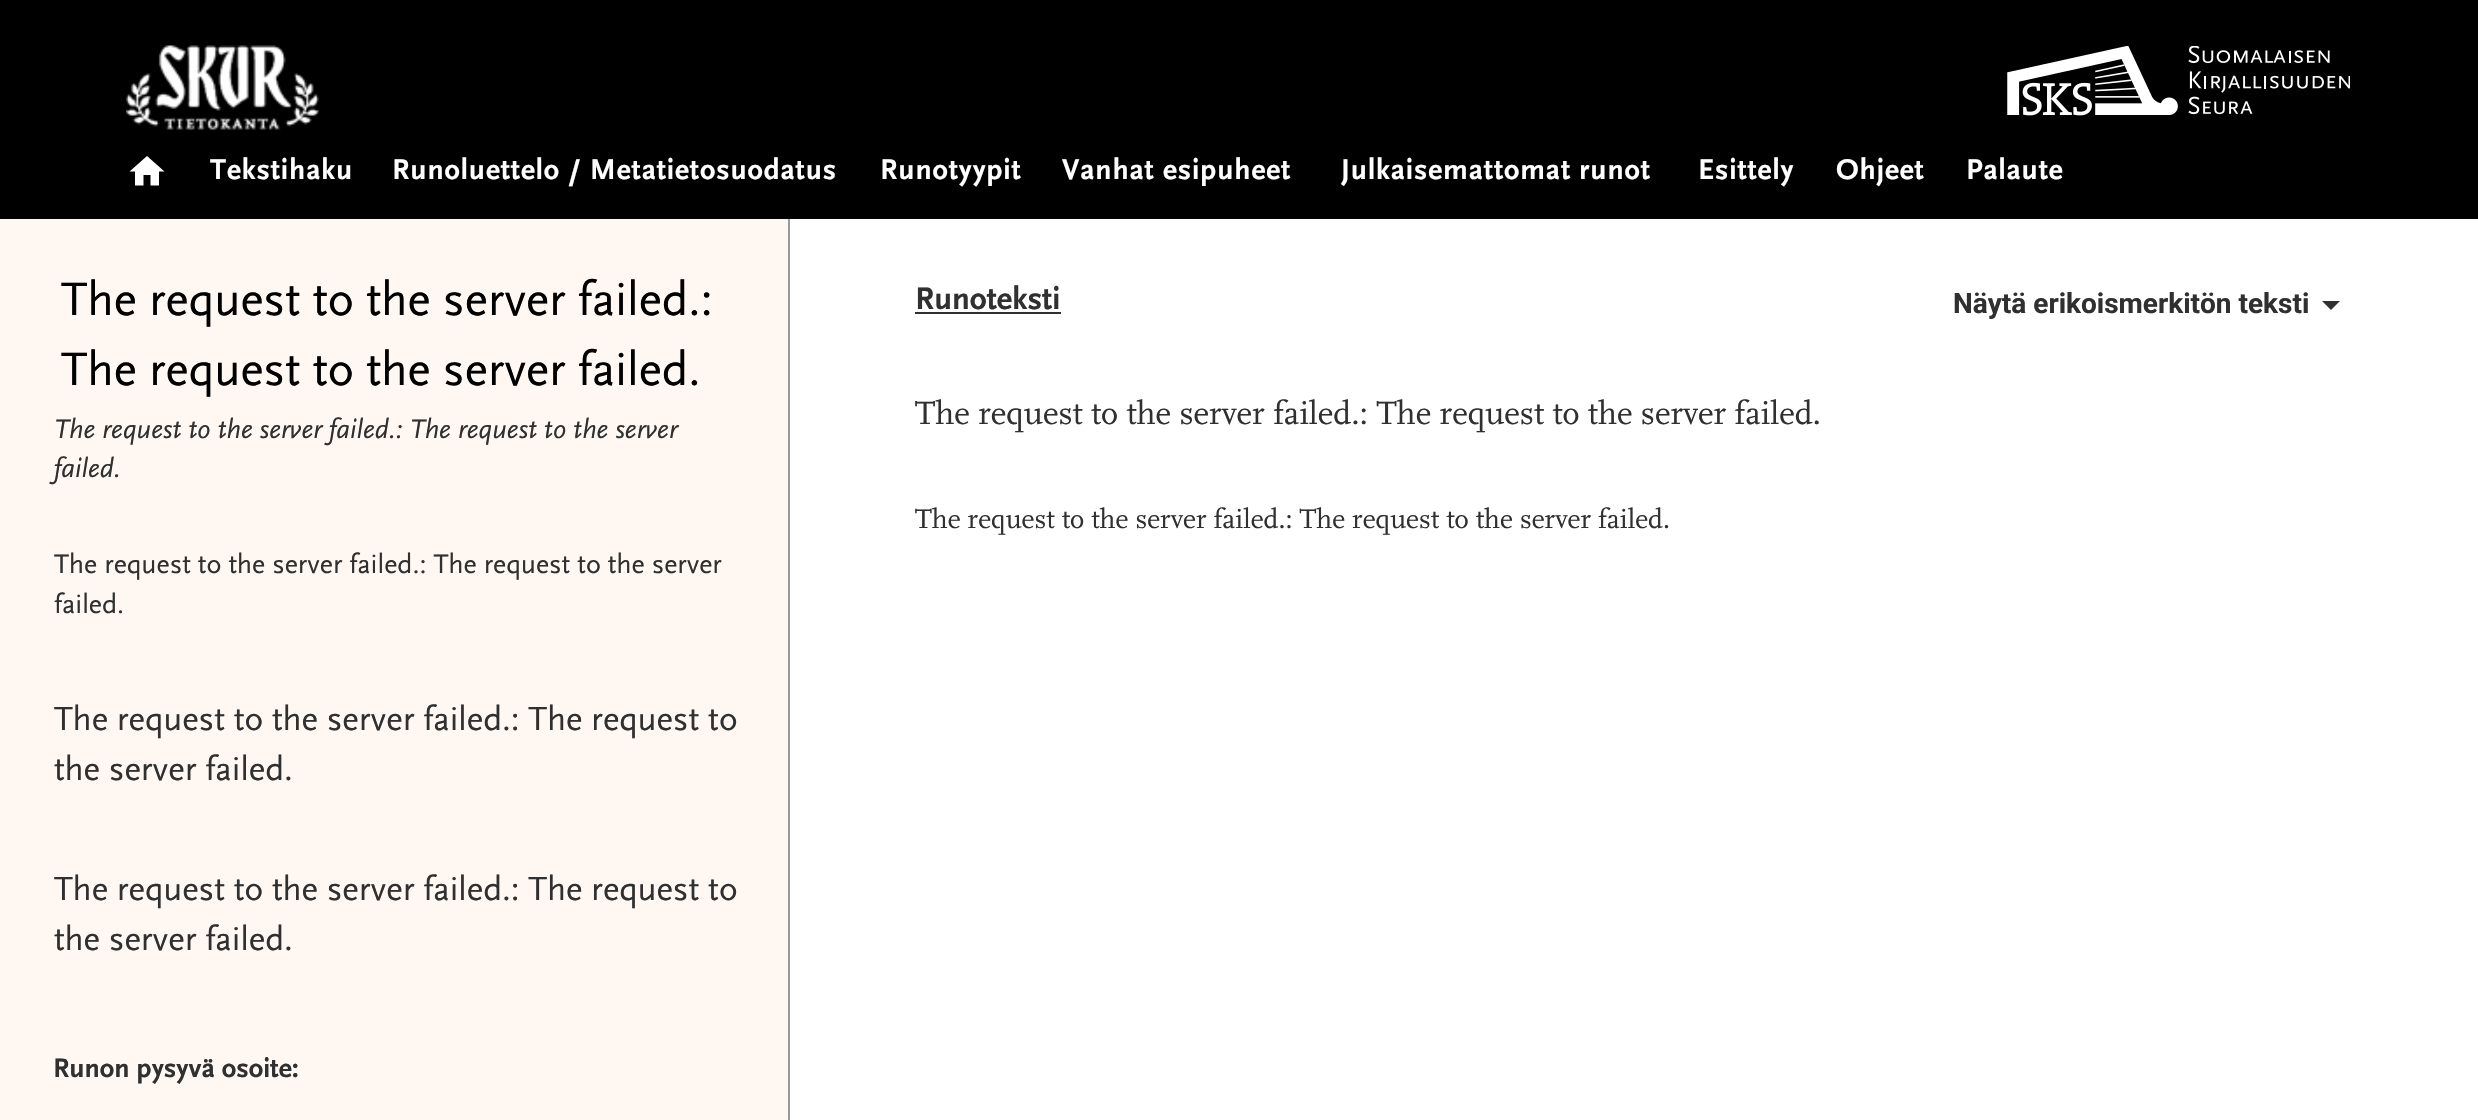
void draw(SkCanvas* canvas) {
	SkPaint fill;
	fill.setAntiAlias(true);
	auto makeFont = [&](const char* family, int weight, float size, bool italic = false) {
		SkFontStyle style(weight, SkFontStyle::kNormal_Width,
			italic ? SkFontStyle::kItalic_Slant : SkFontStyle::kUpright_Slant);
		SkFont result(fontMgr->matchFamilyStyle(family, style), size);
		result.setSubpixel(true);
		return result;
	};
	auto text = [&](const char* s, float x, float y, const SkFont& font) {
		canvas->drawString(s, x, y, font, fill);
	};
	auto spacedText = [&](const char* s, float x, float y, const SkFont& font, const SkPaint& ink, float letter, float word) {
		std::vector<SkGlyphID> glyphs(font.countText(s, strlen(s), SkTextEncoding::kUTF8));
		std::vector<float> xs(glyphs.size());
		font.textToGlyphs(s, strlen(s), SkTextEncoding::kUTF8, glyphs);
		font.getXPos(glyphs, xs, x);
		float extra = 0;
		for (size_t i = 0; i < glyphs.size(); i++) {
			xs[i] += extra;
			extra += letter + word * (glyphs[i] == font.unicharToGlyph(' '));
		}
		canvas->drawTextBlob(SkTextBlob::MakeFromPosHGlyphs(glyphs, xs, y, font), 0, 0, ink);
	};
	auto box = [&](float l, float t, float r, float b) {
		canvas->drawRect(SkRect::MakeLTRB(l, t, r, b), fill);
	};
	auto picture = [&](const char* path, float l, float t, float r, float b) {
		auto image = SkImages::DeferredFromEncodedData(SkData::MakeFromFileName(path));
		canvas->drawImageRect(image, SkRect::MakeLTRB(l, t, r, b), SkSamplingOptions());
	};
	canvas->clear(0xFFFFFFFF);
	fill.setColor(0xFF000000);
	box(0, 0, 2478, 219);
	picture("image0.png", 126, 45, 319, 130);
	picture("image1.png", 2007, 46, 2350, 116);
	fill.setColor(0xFFFFFFFF);
	canvas->drawPath(SkPathBuilder().moveTo(143.5f, 185.5f).lineTo(143.5f, 175).lineTo(150.5f, 175).lineTo(150.5f, 185.5f).lineTo(159, 185.5f).lineTo(159, 171.5f).lineTo(164.5f, 171.5f).lineTo(147, 156).lineTo(129.5f, 171.5f).lineTo(135, 171.5f).lineTo(135, 185.5f).close().detach(), fill);
	fill.setColor(0xFFFFF8F2);
	box(0, 219, 788, 1120);
	fill.setColor(0xFF999999);
	box(788, 219, 790, 1120);
	fill.setColor(0xFF303030);
	box(915, 312, 1061, 314);
	canvas->drawPath(SkPathBuilder().moveTo(2322, 301).lineTo(2331, 310).lineTo(2340, 301).close().detach(), fill);
	auto font1 = makeFont("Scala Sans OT", 700, 29.75f);
	fill.setColor(0xFFFFFFFF);
	spacedText("Tekstihaku", 210, 179, font1, fill, 0.9f, 0);
	spacedText("Runoluettelo / Metatietosuodatus", 392, 179, font1, fill, 0.9f, 0);
	spacedText("Runotyypit", 880, 179, font1, fill, 0.9f, 0);
	spacedText("Vanhat esipuheet", 1062, 179, font1, fill, 0.9f, 0);
	spacedText("Julkaisemattomat runot", 1341, 179, font1, fill, 0.9f, 0);
	spacedText("Esittely", 1698, 179, font1, fill, 0.9f, 0);
	spacedText("Ohjeet", 1836, 179, font1, fill, 0.9f, 0);
	spacedText("Palaute", 1966, 179, font1, fill, 0.9f, 0);
	auto font2 = makeFont("Scala Sans OT", 400, 49);
	fill.setColor(0xFF000000);
	text("The request to the server failed.:", 61, 315, font2);
	text("The request to the server failed.", 61, 385, font2);
	auto font3 = makeFont("Scala Sans OT", 400, 28, true);
	fill.setColor(0xFF303030);
	text("The request to the server failed.: The request to the server", 54, 438, font3);
	text("failed.", 54, 477, font3);
	auto font4 = makeFont("Scala Sans OT", 400, 28);
	text("The request to the server failed.: The request to the server", 54, 573, font4);
	text("failed.", 54, 613, font4);
	auto font5 = makeFont("Scala Sans OT", 400, 35);
	text("The request to the server failed.: The request to", 54, 730, font5);
	text("the server failed.", 54, 780, font5);
	text("The request to the server failed.: The request to", 54, 900, font5);
	text("the server failed.", 54, 950, font5);
	auto font6 = makeFont("Scala Sans OT", 700, 28);
	text("Runon pysyvä osoite:", 53, 1077, font6);
	auto font7 = makeFont("Scala Sans OT", 700, 32.75f);
	text("Runoteksti", 915, 309, font7);
	auto font8 = makeFont("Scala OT", 400, 33.6f);
	text("The request to the server failed.: The request to the server failed.", 915, 424, font8);
	auto font9 = makeFont("Scala OT", 400, 28);
	text("The request to the server failed.: The request to the server failed.", 915, 528, font9);
	auto font10 = makeFont("Roboto", 700, 28);
	text("Näytä erikoismerkitön teksti", 1953, 313, font10);
}
